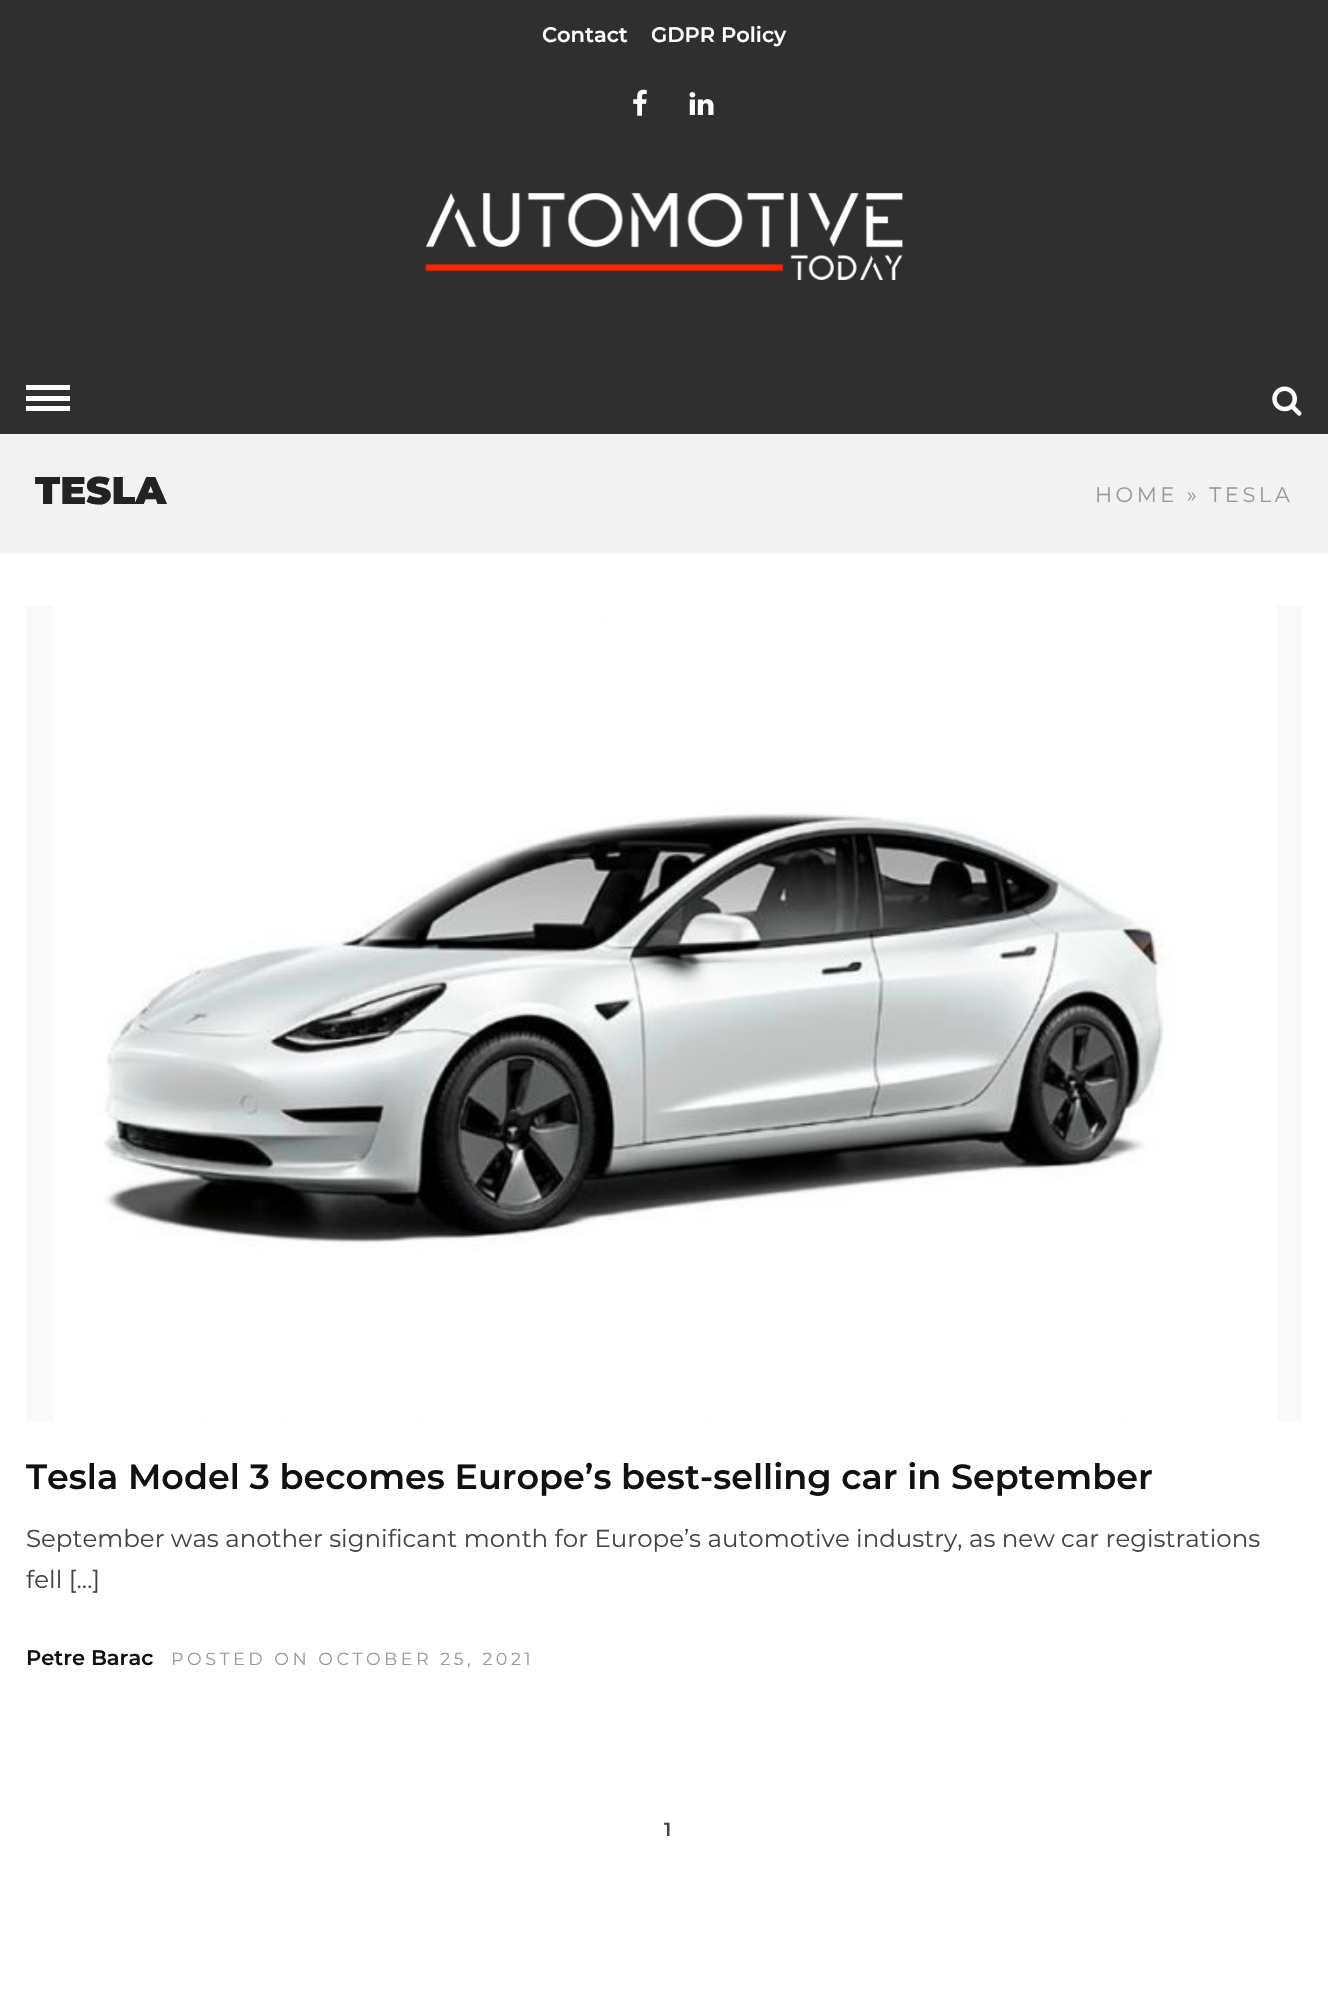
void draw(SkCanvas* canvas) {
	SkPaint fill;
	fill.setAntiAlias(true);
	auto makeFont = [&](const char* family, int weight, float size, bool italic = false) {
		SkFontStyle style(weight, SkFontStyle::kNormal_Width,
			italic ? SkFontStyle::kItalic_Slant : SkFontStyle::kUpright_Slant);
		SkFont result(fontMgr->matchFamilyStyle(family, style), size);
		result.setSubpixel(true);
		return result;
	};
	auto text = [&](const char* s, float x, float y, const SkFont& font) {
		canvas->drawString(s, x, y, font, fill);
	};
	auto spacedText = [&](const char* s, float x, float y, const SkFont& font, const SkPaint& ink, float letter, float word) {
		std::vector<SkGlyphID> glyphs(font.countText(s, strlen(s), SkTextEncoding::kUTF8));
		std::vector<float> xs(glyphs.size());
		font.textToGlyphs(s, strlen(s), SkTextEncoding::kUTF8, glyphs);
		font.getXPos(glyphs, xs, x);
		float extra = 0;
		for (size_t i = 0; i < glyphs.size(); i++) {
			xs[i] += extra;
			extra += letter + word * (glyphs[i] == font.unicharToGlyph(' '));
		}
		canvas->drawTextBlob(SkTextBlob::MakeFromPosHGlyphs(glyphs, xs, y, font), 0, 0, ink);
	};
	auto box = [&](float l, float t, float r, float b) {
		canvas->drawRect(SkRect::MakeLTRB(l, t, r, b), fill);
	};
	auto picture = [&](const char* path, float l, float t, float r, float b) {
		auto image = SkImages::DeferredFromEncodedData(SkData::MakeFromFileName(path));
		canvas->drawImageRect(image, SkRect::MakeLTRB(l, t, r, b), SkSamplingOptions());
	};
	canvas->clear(0xFFFFFFFF);
	fill.setColor(0xFF302F2F);
	box(0, 0, 1328, 364);
	picture("image0.png", 633, 89, 647, 116);
	picture("image1.png", 689, 92, 714, 115);
	picture("image2.png", 425, 193, 903, 280);
	box(0, 364, 1328, 434);
	fill.setColor(0xFFFFFFFF);
	box(26, 385, 70, 390);
	box(26, 396, 70, 401);
	box(26, 406, 70, 411);
	picture("image3.png", 1272, 386, 1302, 416);
	fill.setColor(0xFFF2F2F2);
	box(0, 434, 1328, 553);
	fill.setColor(0xFFF9F9F9);
	box(26, 606, 1302, 1421);
	picture("image4.png", 53, 606, 1277, 1421);
	auto font1 = makeFont("Montserrat", 600, 21);
	fill.setColor(0xFFFFFFFF);
	text("Contact", 542, 42, font1);
	text("GDPR Policy", 651, 42, font1);
	auto font2 = makeFont("Montserrat", 900, 38.5f);
	fill.setColor(0xFF222222);
	text("TESLA", 35, 504, font2);
	auto font3 = makeFont("Montserrat", 400, 21);
	fill.setColor(0xFF999999);
	spacedText("HOME » TESLA", 1095, 502, font3, fill, 3.5f, 0);
	auto font4 = makeFont("Montserrat", 600, 35);
	fill.setColor(0xFF111111);
	text("Tesla Model 3 becomes Europe’s best-selling car in September", 26, 1489, font4);
	auto font5 = makeFont("Montserrat", 400, 24.5f);
	fill.setColor(0xFF444444);
	text("September was another significant month for Europe’s automotive industry, as new car registrations", 26, 1547, font5);
	text("fell […]", 26, 1588, font5);
	fill.setColor(0xFF111111);
	text("Petre Barac", 26, 1665, font1);
	auto font6 = makeFont("Montserrat", 400, 17.5f);
	fill.setColor(0xFF999999);
	spacedText("POSTED ON OCTOBER 25, 2021", 171, 1665, font6, fill, 3.5f, 0);
	auto font7 = makeFont("Montserrat", 600, 19);
	fill.setColor(0xFF444444);
	text("1", 664, 1836, font7);
}
